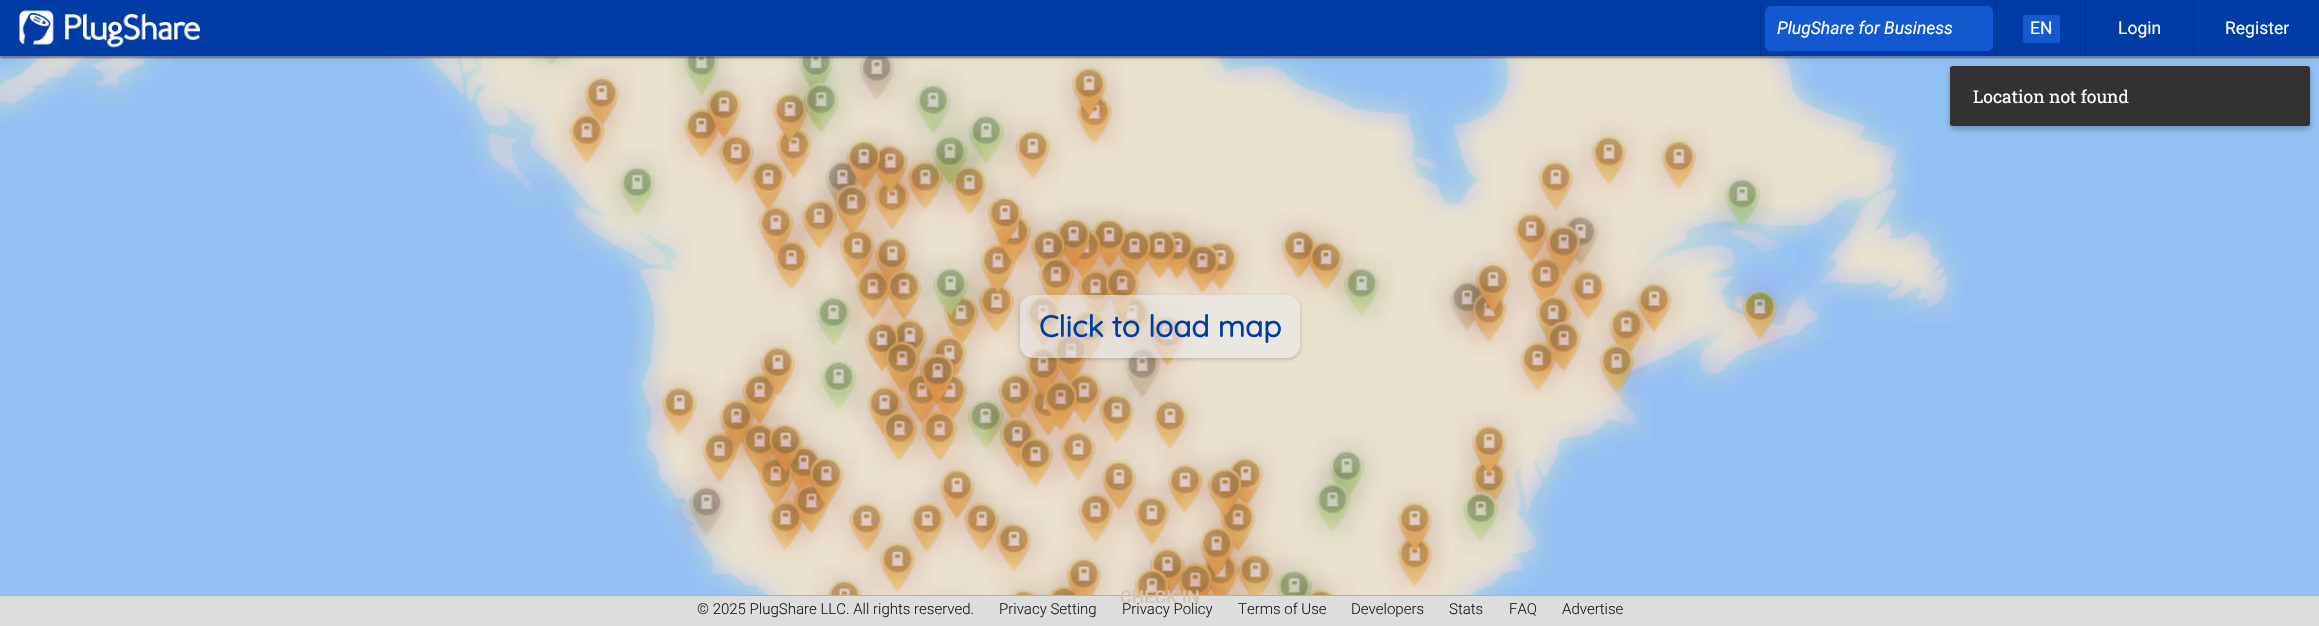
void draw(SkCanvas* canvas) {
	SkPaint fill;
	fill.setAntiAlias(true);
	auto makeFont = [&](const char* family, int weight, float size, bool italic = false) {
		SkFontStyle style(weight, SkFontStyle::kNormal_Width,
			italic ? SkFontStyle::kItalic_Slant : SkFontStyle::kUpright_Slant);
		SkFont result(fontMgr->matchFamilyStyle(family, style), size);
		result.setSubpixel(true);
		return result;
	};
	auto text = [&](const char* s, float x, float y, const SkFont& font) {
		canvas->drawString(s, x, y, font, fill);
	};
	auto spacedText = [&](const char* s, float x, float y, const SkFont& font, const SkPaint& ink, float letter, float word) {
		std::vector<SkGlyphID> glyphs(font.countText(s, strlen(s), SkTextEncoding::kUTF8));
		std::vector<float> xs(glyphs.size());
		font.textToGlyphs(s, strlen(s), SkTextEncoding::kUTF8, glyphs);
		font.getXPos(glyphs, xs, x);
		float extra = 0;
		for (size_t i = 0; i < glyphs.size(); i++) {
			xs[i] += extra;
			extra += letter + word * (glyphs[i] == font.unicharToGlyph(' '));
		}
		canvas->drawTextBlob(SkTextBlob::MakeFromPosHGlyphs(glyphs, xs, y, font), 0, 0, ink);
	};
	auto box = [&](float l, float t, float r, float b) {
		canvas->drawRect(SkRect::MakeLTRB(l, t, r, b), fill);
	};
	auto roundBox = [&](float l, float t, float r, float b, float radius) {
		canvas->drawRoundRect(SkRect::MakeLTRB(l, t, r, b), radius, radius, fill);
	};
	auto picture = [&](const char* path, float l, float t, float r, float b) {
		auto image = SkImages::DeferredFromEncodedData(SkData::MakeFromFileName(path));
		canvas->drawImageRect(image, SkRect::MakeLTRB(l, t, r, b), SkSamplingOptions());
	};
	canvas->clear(0xFFDDDDDD);
	picture("image1.png", 0, 56, 2319, 595);
	fill.setColor(0x1F000000);
	fill.setMaskFilter(SkMaskFilter::MakeBlur(kNormal_SkBlurStyle, 0.5f));
	canvas->drawRect(SkRect::MakeLTRB(1, 4, 2319, 58), fill);
	fill.setMaskFilter(nullptr);
	fill.setColor(0x24000000);
	fill.setMaskFilter(SkMaskFilter::MakeBlur(kNormal_SkBlurStyle, 0.5f));
	canvas->drawRect(SkRect::MakeLTRB(0, 1, 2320, 58), fill);
	fill.setMaskFilter(nullptr);
	fill.setColor(0x33000000);
	fill.setMaskFilter(SkMaskFilter::MakeBlur(kNormal_SkBlurStyle, 2));
	canvas->drawRect(SkRect::MakeLTRB(0, 1, 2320, 58), fill);
	fill.setMaskFilter(nullptr);
	fill.setColor(0xFF003CA6);
	box(0, 0, 2319, 56);
	picture("image0.png", 19, 10, 200, 48);
	fill.setColor(0xFF003490);
	box(1760, 3, 1761, 55);
	fill.setColor(0xFF1458CF);
	roundBox(1765, 6, 1993, 51, 6);
	fill.setColor(0xFF003490);
	box(1996, 0, 1997, 56);
	fill.setColor(0xFF1558CF);
	roundBox(2023, 15, 2060, 43, 2.5f);
	fill.setColor(0xFF003490);
	box(2085, 0, 2086, 56);
	box(2193, 0, 2194, 56);
	fill.setColor(0xFFB1B1B1);
	box(0, 595, 2319, 596);
	canvas->save();
	canvas->clipPath(SkPathBuilder(SkPathFillType::kEvenOdd).moveTo(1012, 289).lineTo(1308, 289).lineTo(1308, 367).lineTo(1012, 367).close().moveTo(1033, 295).lineTo(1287, 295).cubicTo(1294, 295, 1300, 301, 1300, 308).lineTo(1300, 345).cubicTo(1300, 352, 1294, 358, 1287, 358).lineTo(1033, 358).cubicTo(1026, 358, 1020, 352, 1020, 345).lineTo(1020, 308).cubicTo(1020, 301, 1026, 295, 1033, 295).close().detach(), true);
	fill.setColor(0x4D000000);
	fill.setMaskFilter(SkMaskFilter::MakeBlur(kNormal_SkBlurStyle, 2.5f));
	canvas->drawRoundRect(SkRect::MakeLTRB(1021, 298, 1299, 358), 11, 11, fill);
	fill.setMaskFilter(nullptr);
	canvas->restore();
	fill.setColor(0x9CE9E9E9);
	roundBox(1020, 295, 1300, 358, 13);
	fill.setColor(0x42000000);
	fill.setMaskFilter(SkMaskFilter::MakeBlur(kNormal_SkBlurStyle, 3));
	canvas->drawRoundRect(SkRect::MakeLTRB(1950, 69, 2310, 129), 2.5f, 2.5f, fill);
	fill.setMaskFilter(nullptr);
	fill.setColor(0xFF323232);
	roundBox(1950, 66, 2310, 126, 2.5f);
	auto font1 = makeFont("Roboto", 400, 17.5f, true);
	fill.setColor(0xFFFFFFFF);
	text("PlugShare for Business", 1777, 34, font1);
	auto font2 = makeFont("Roboto", 400, 17.5f);
	text("EN", 2030, 34, font2);
	text("Login", 2118, 34, font2);
	text("Register", 2225, 34, font2);
	auto font3 = makeFont("Quicksand", 700, 30);
	fill.setColor(0xFF003CA6);
	text("Click to load map", 1039, 337, font3);
	auto font4 = makeFont("Roboto", 500, 17.5f);
	fill.setColor(0xFFD4C4B4);
	spacedText("CHECK IN", 1120, 603, font4, fill, 0.25f, 0);
	auto font5 = makeFont("Roboto", 300, 15);
	fill.setColor(0xFF1D1D1D);
	text("© 2025 PlugShare LLC. All rights reserved.", 697, 614, font5);
	text("Privacy Setting", 999, 614, font5);
	text("Privacy Policy", 1122, 614, font5);
	text("Terms of Use", 1238, 614, font5);
	text("Developers", 1351, 614, font5);
	text("Stats", 1449, 614, font5);
	text("FAQ", 1509, 614, font5);
	text("Advertise", 1562, 614, font5);
	auto font6 = makeFont("Roboto Slab", 400, 17.5f);
	fill.setColor(0xFFFFFFFF);
	text("Location not found", 1973, 103, font6);
}
